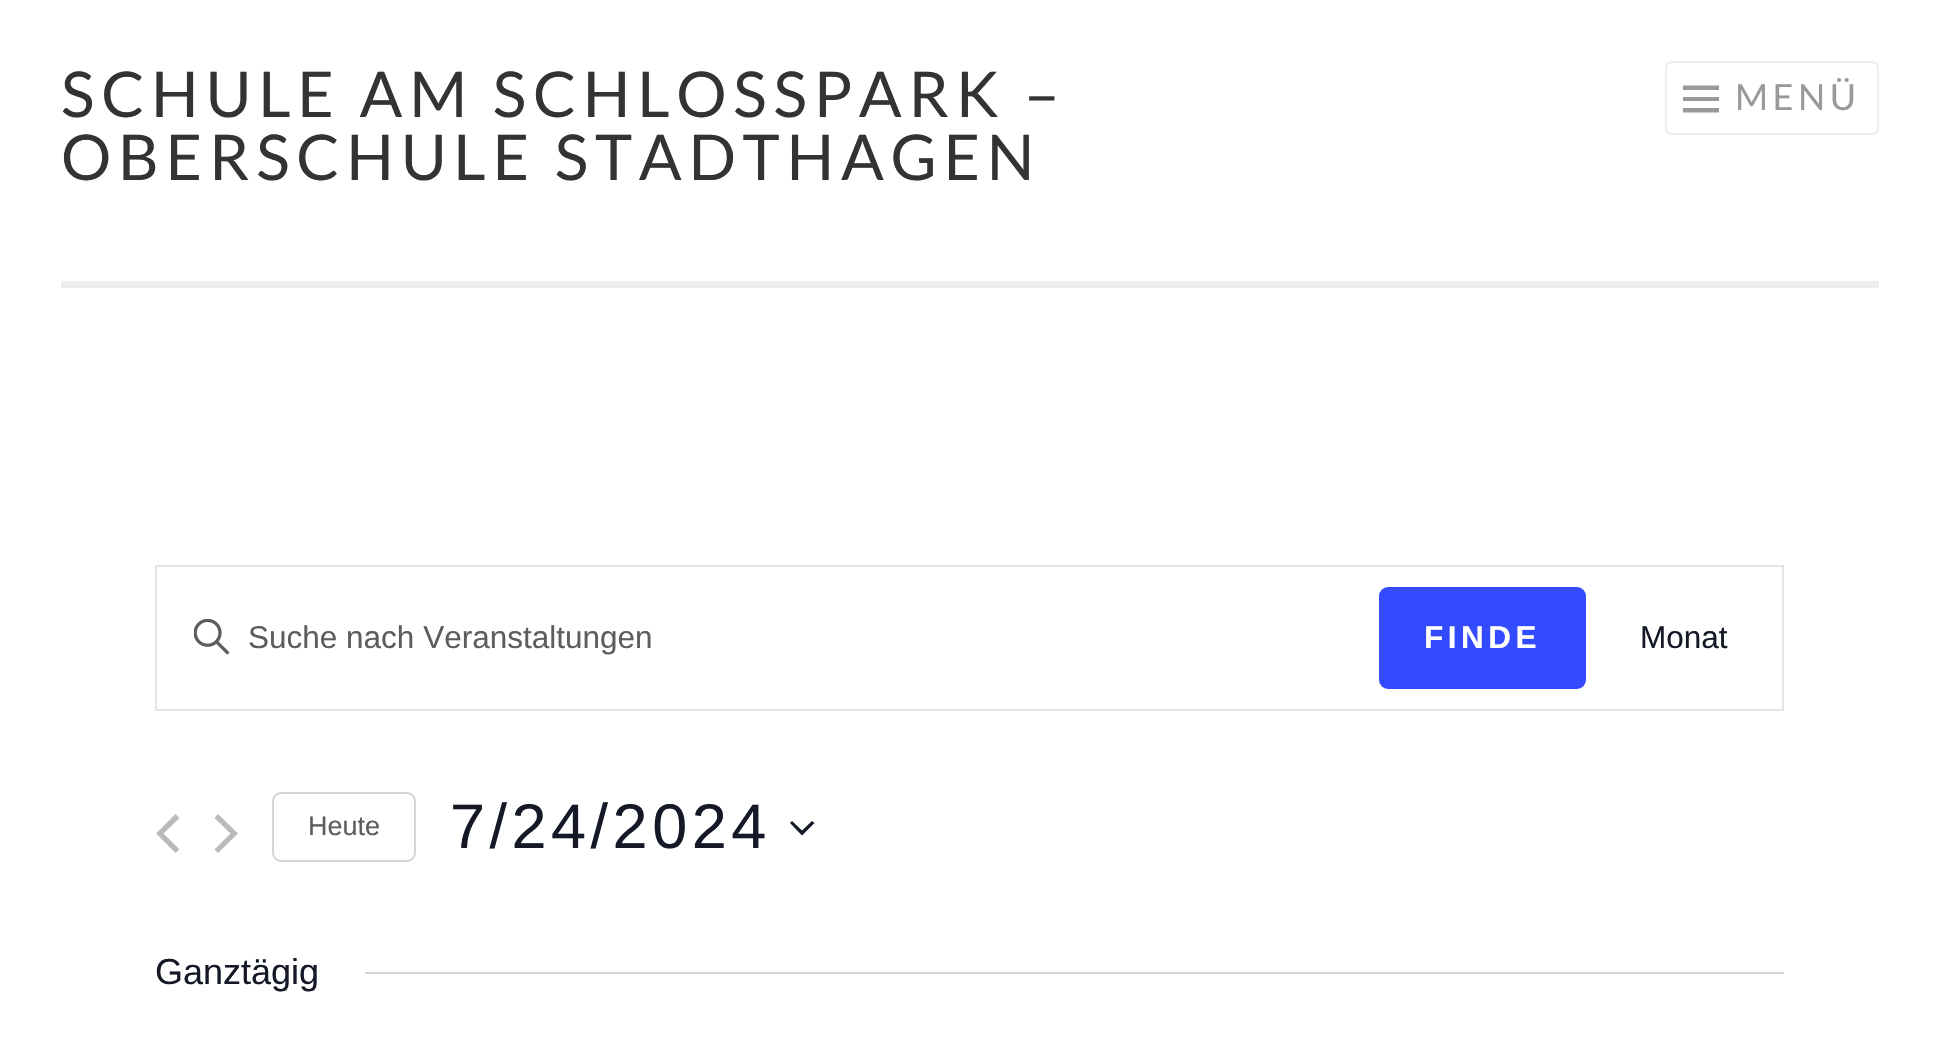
void draw(SkCanvas* canvas) {
	SkPaint fill;
	fill.setAntiAlias(true);
	auto makeFont = [&](const char* family, int weight, float size, bool italic = false) {
		SkFontStyle style(weight, SkFontStyle::kNormal_Width,
			italic ? SkFontStyle::kItalic_Slant : SkFontStyle::kUpright_Slant);
		SkFont result(fontMgr->matchFamilyStyle(family, style), size);
		result.setSubpixel(true);
		return result;
	};
	auto text = [&](const char* s, float x, float y, const SkFont& font) {
		canvas->drawString(s, x, y, font, fill);
	};
	auto spacedText = [&](const char* s, float x, float y, const SkFont& font, const SkPaint& ink, float letter, float word) {
		std::vector<SkGlyphID> glyphs(font.countText(s, strlen(s), SkTextEncoding::kUTF8));
		std::vector<float> xs(glyphs.size());
		font.textToGlyphs(s, strlen(s), SkTextEncoding::kUTF8, glyphs);
		font.getXPos(glyphs, xs, x);
		float extra = 0;
		for (size_t i = 0; i < glyphs.size(); i++) {
			xs[i] += extra;
			extra += letter + word * (glyphs[i] == font.unicharToGlyph(' '));
		}
		canvas->drawTextBlob(SkTextBlob::MakeFromPosHGlyphs(glyphs, xs, y, font), 0, 0, ink);
	};
	auto box = [&](float l, float t, float r, float b) {
		canvas->drawRect(SkRect::MakeLTRB(l, t, r, b), fill);
	};
	auto roundBox = [&](float l, float t, float r, float b, float radius) {
		canvas->drawRoundRect(SkRect::MakeLTRB(l, t, r, b), radius, radius, fill);
	};
	auto picture = [&](const char* path, float l, float t, float r, float b) {
		auto image = SkImages::DeferredFromEncodedData(SkData::MakeFromFileName(path));
		canvas->drawImageRect(image, SkRect::MakeLTRB(l, t, r, b), SkSamplingOptions());
	};
	canvas->clear(0xFFFFFFFF);
	fill.setColor(0xFFEEEEEE);
	box(61, 281, 1879, 288);
	fill.setStyle(SkPaint::kStroke_Style);
	fill.setStrokeWidth(2);
	canvas->drawRoundRect(SkRect::MakeLTRB(1666, 62, 1878, 134), 6, 6, fill);
	fill.setStyle(SkPaint::kFill_Style);
	fill.setColor(0xFF999999);
	canvas->drawPath(SkPathBuilder().moveTo(1683, 112.5f).lineTo(1683, 108).lineTo(1719, 108).lineTo(1719, 112.5f).close().moveTo(1683, 85.5f).lineTo(1719, 85.5f).lineTo(1719, 90).lineTo(1683, 90).close().moveTo(1683, 101).lineTo(1683, 97).lineTo(1719, 97).lineTo(1719, 101).close().detach(), fill);
	fill.setStyle(SkPaint::kStroke_Style);
	fill.setColor(0xFFE4E4E4);
	canvas->drawRect(SkRect::MakeLTRB(156, 566, 1783, 710), fill);
	picture("image0.png", 194, 619, 230, 655);
	fill.setStyle(SkPaint::kFill_Style);
	fill.setColor(0xFF334AFF);
	roundBox(1379, 587, 1586, 689, 9);
	fill.setColor(0xFFBABABA);
	canvas->drawPath(SkPathBuilder().moveTo(179.5f, 849.5f).lineTo(175.5f, 853).lineTo(156, 833.5f).lineTo(175.5f, 814).lineTo(179.5f, 818).lineTo(163.5f, 833.5f).close().detach(), fill);
	canvas->drawPath(SkPathBuilder().moveTo(214.5f, 818).lineTo(218, 814).lineTo(238, 833.5f).lineTo(218, 853).lineTo(214.5f, 849.5f).lineTo(230.5f, 833.5f).close().detach(), fill);
	fill.setStyle(SkPaint::kStroke_Style);
	fill.setColor(0xFFD5D5D5);
	canvas->drawRoundRect(SkRect::MakeLTRB(273, 793, 415, 861), 8, 8, fill);
	fill.setStyle(SkPaint::kFill_Style);
	fill.setColor(0xFF141827);
	canvas->drawPath(SkPathBuilder(SkPathFillType::kEvenOdd).moveTo(792, 821).lineTo(802, 830.5f).lineTo(812, 821).lineTo(814.5f, 823).lineTo(802, 835.5f).lineTo(790, 823).close().detach(), fill);
	fill.setColor(0xFFD5D5D5);
	box(365, 972, 1784, 974);
	auto font1 = makeFont("Lato", 400, 63);
	fill.setColor(0xFF333333);
	spacedText("SCHULE AM SCHLOSSPARK –", 61, 117, font1, fill, 6.75f, 0);
	spacedText("OBERSCHULE STADTHAGEN", 61, 180, font1, fill, 6.75f, 0);
	auto font2 = makeFont("Lato", 400, 36);
	fill.setColor(0xFF999999);
	spacedText("MENÜ", 1735, 110, font2, fill, 4.5f, 0);
	auto font3 = makeFont("Liberation Sans", 400, 31.5f);
	fill.setColor(0xFF5D5D5D);
	text("Suche nach Veranstaltungen", 248, 648, font3);
	auto font4 = makeFont("Liberation Sans", 700, 31.5f);
	fill.setColor(0xFFFFFFFF);
	spacedText("FINDE", 1424, 648, font4, fill, 4.5f, 0);
	fill.setColor(0xFF141827);
	text("Monat", 1640, 648, font3);
	auto font5 = makeFont("Liberation Sans", 400, 27);
	fill.setColor(0xFF5D5D5D);
	text("Heute", 308, 835, font5);
	auto font6 = makeFont("Liberation Sans", 400, 63);
	fill.setColor(0xFF141827);
	spacedText("7/24/2024", 450, 848, font6, fill, 4.5f, 0);
	auto font7 = makeFont("Liberation Sans", 400, 36);
	text("Ganztägig", 155, 984, font7);
}
